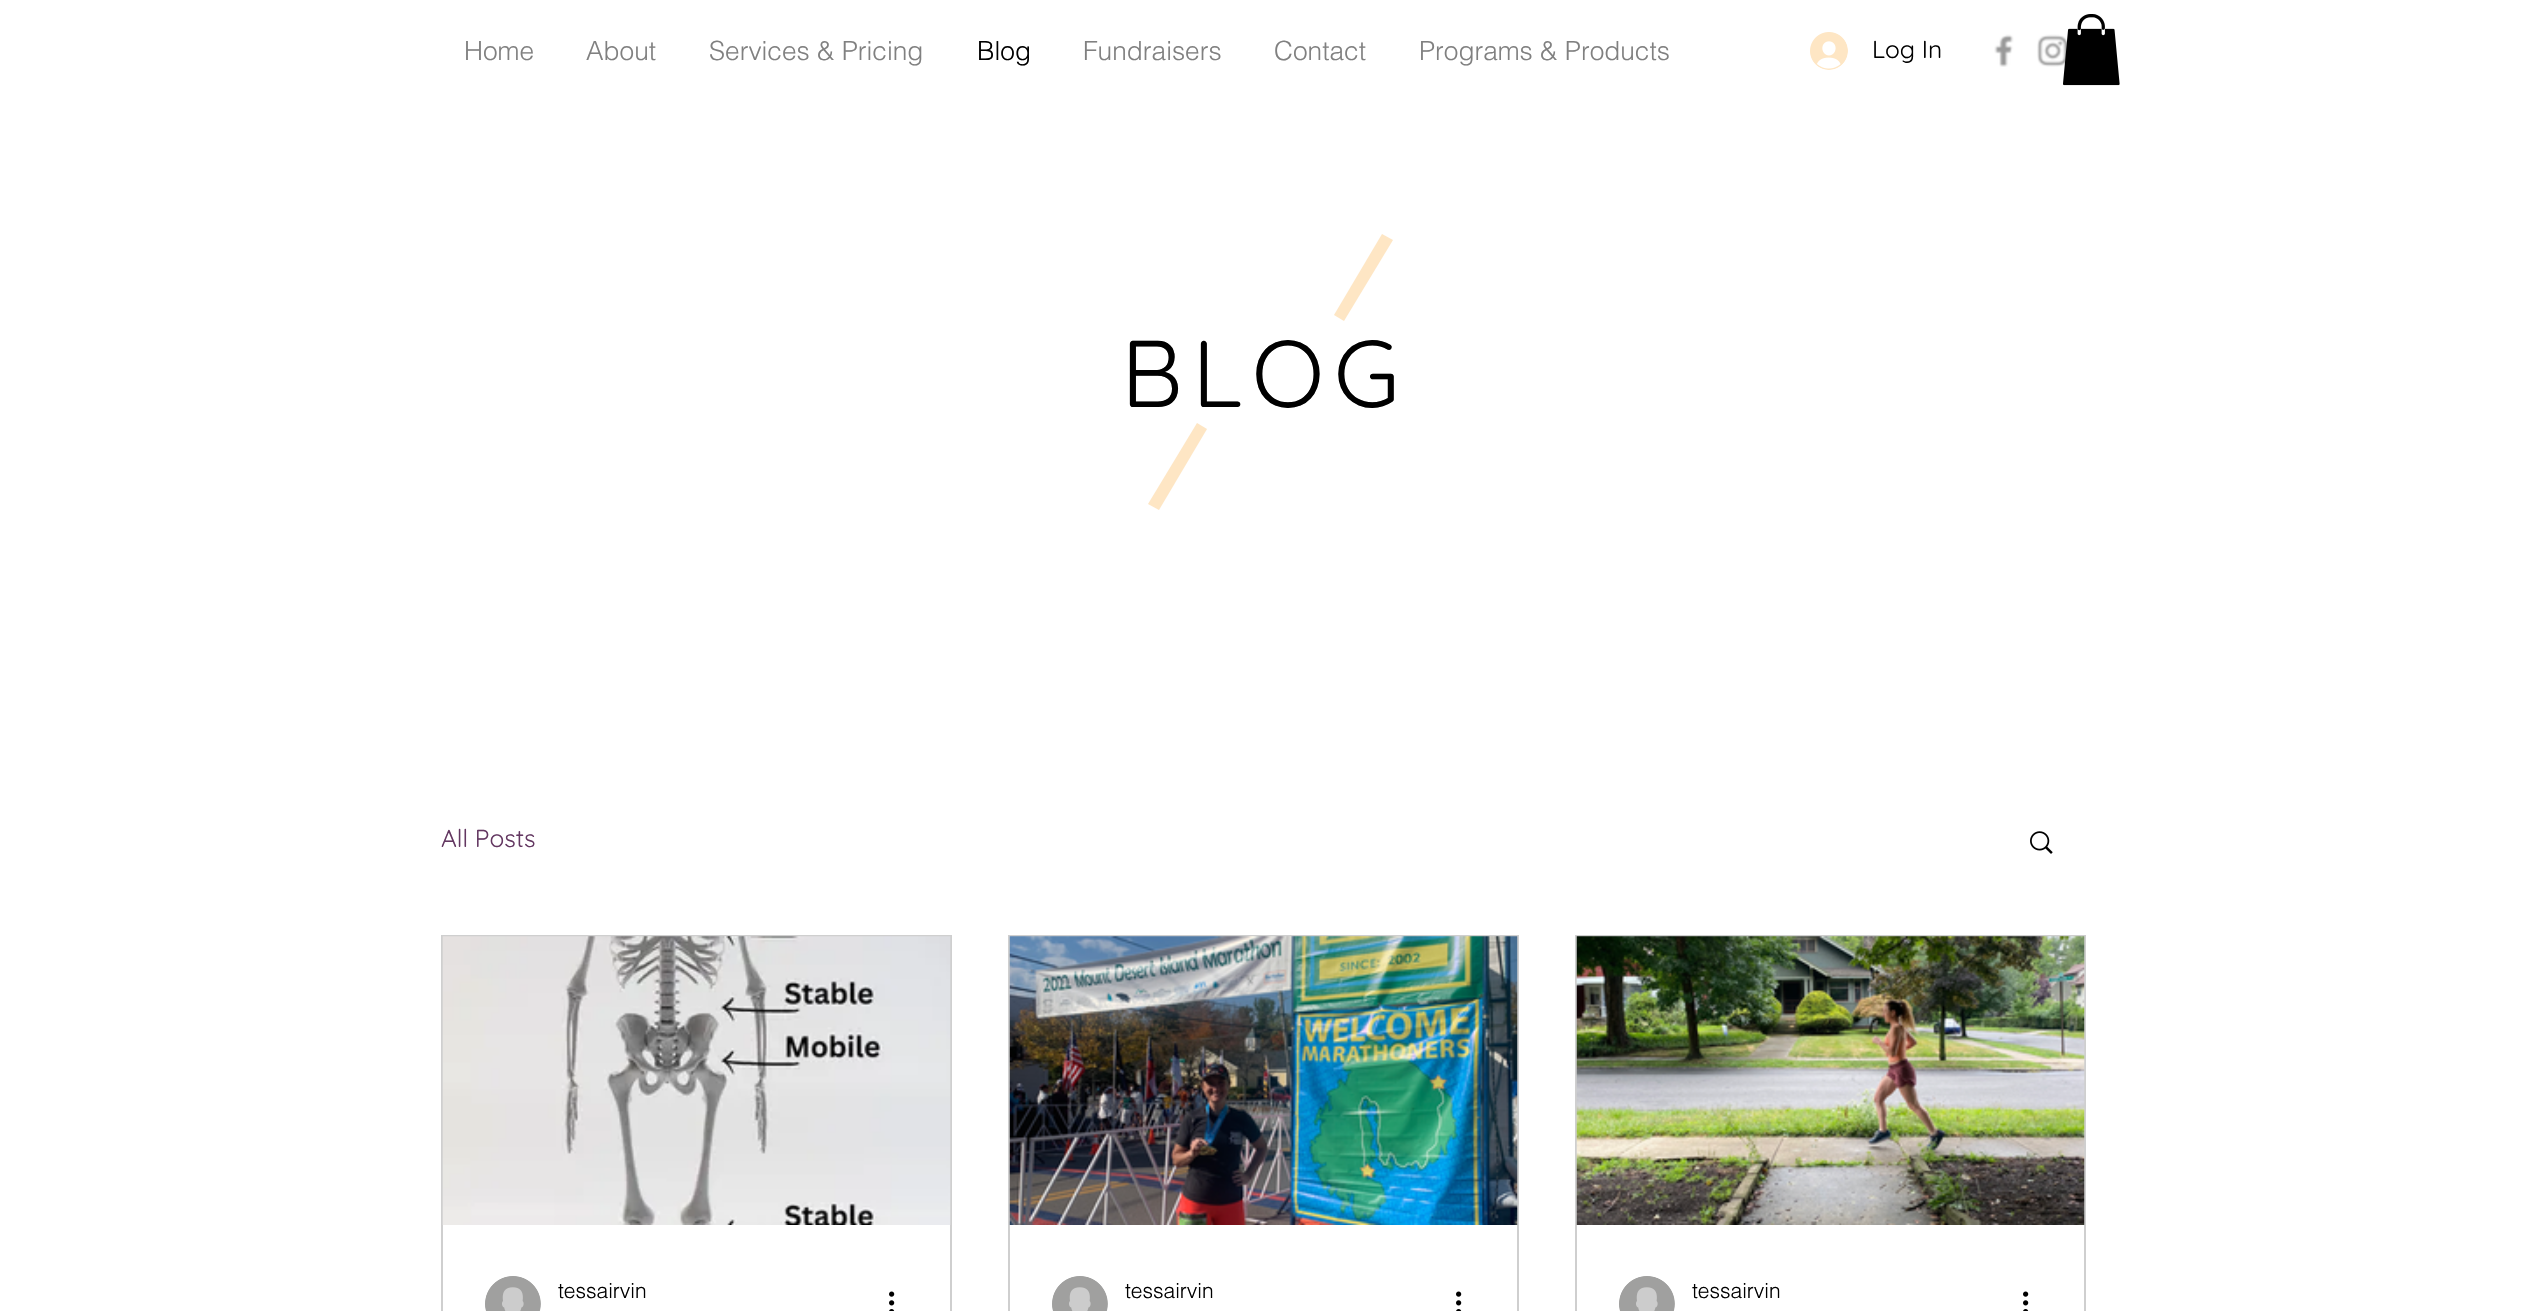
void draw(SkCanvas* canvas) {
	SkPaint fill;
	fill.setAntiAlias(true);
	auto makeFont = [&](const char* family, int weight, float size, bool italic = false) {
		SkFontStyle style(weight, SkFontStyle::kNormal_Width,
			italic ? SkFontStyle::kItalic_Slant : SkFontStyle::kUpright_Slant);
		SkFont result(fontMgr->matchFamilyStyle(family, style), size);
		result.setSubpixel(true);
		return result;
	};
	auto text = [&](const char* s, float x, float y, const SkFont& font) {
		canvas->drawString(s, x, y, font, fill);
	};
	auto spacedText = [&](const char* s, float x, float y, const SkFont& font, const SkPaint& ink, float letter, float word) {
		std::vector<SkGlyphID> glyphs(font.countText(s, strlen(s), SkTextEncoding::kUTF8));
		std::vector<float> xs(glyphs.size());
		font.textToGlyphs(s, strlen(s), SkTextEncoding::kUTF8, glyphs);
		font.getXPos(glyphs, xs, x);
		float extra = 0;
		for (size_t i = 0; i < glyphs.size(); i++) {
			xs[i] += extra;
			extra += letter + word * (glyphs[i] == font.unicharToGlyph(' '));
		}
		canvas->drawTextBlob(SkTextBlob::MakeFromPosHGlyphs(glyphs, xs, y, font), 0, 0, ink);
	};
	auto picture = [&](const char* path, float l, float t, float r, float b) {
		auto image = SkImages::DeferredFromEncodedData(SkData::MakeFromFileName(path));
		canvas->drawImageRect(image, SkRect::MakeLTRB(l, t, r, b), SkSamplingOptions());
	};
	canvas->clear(0xFFFFFFFF);
	picture("image0.png", 1810, 32, 1848, 70);
	picture("image1.png", 1994, 34, 2014, 67);
	picture("image2.png", 2037, 34, 2068, 67);
	picture("image3.png", 2063, 14, 2120, 86);
	fill.setColor(0xFFFEE6C4);
	canvas->drawPath(SkPathBuilder().moveTo(1382, 234).lineTo(1393, 240).lineTo(1344, 321).lineTo(1334, 315).close().detach(), fill);
	canvas->drawPath(SkPathBuilder().moveTo(1197, 423).lineTo(1207, 429).lineTo(1159, 510).lineTo(1148, 504).close().detach(), fill);
	picture("image4.png", 2030, 831, 2053, 854);
	fill.setStyle(SkPaint::kStroke_Style);
	fill.setStrokeWidth(2);
	fill.setColor(0xFFCFCFCF);
	canvas->drawRect(SkRect::MakeLTRB(442, 936, 951, 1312), fill);
	picture("image5.png", 442, 936, 951, 1225);
	picture("image6.png", 485, 1276, 541, 1311);
	picture("image7.png", 889, 1291, 895, 1311);
	canvas->drawRect(SkRect::MakeLTRB(1009, 936, 1518, 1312), fill);
	picture("image8.png", 1009, 936, 1518, 1225);
	picture("image6.png", 1052, 1276, 1108, 1311);
	picture("image7.png", 1456, 1291, 1462, 1311);
	canvas->drawRect(SkRect::MakeLTRB(1576, 936, 2085, 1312), fill);
	picture("image9.png", 1576, 936, 2085, 1225);
	picture("image6.png", 1619, 1276, 1675, 1311);
	picture("image7.png", 2023, 1291, 2029, 1311);
	auto font1 = makeFont("helvetica", 300, 26.25f);
	fill.setStyle(SkPaint::kFill_Style);
	fill.setColor(0xFF808080);
	text("Home", 464, 60, font1);
	text("About", 586, 60, font1);
	text("Services & Pricing", 709, 60, font1);
	fill.setColor(0xFF000000);
	text("Blog", 977, 60, font1);
	fill.setColor(0xFF808080);
	text("Fundraisers", 1083, 60, font1);
	text("Contact", 1274, 60, font1);
	text("Programs & Products", 1419, 60, font1);
	auto font2 = makeFont("Quicksand", 400, 24.5f);
	fill.setColor(0xFF000000);
	text("Log In", 1872, 58, font2);
	auto font3 = makeFont("Quicksand", 400, 94.5f);
	spacedText("BLOG", 1121, 407, font3, fill, 9.5f, 0);
	fill.setColor(0xFF633761);
	text("All Posts", 441, 847, font2);
	auto font4 = makeFont("helvetica", 300, 21);
	fill.setColor(0xFF000000);
	text("tessairvin", 558, 1298, font4);
	text("tessairvin", 1125, 1298, font4);
	text("tessairvin", 1692, 1298, font4);
}
